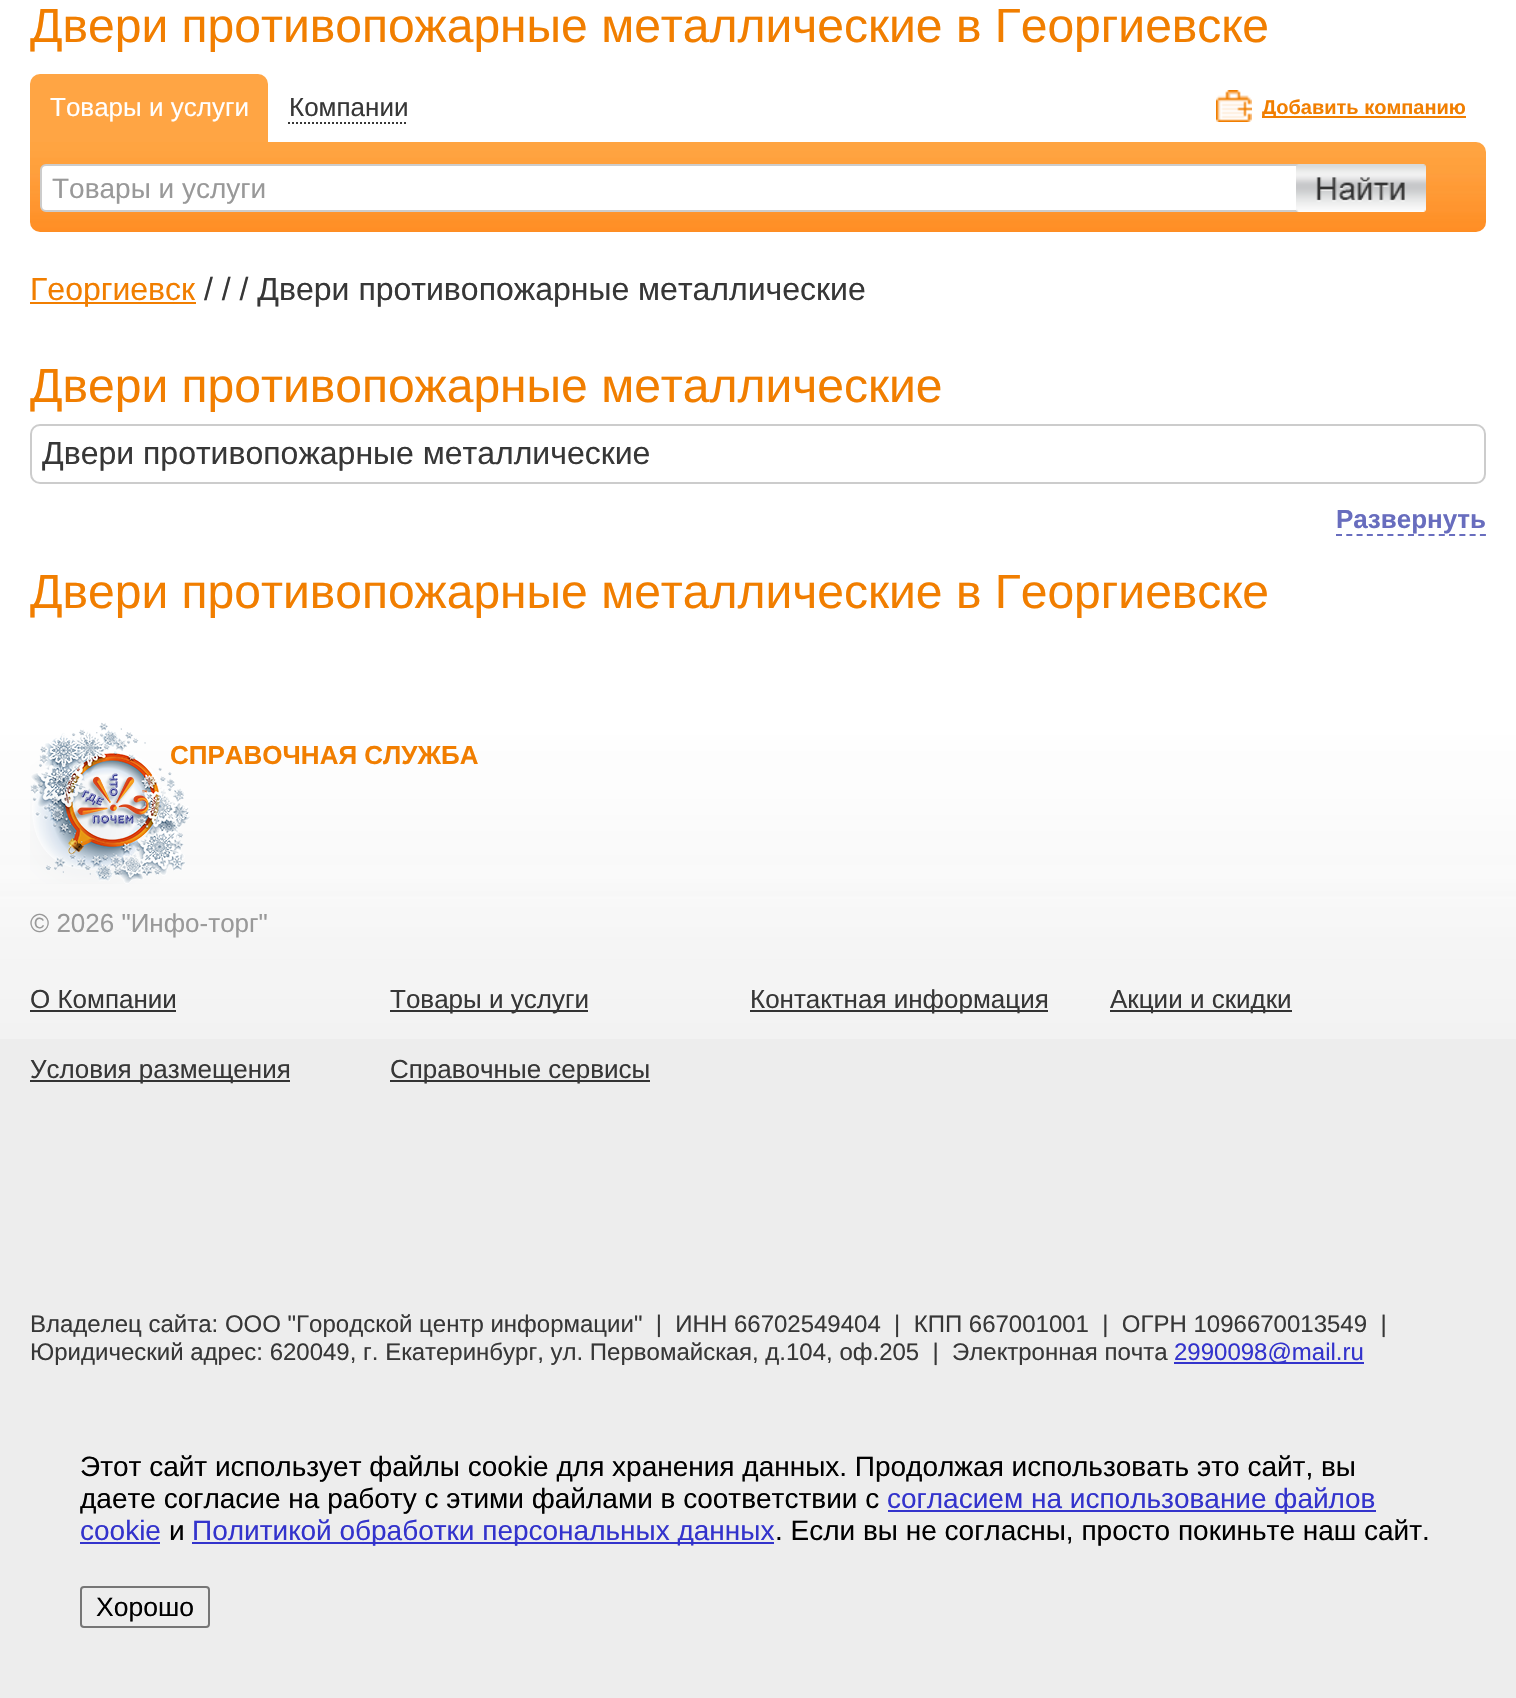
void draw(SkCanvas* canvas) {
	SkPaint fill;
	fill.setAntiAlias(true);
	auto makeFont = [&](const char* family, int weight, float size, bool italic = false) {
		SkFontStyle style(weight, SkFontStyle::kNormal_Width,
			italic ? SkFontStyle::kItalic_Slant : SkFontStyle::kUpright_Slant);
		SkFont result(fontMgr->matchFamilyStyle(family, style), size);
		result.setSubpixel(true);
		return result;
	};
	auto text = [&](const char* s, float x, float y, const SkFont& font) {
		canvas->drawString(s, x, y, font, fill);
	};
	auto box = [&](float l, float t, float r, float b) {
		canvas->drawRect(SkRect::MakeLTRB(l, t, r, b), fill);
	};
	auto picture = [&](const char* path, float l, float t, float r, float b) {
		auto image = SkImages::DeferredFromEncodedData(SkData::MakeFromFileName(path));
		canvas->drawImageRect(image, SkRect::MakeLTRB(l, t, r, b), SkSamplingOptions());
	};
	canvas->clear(0xFFFFFFFF);
	picture("image0.png", 30, 74, 268, 142);
	fill.setStyle(SkPaint::kStroke_Style);
	fill.setStrokeWidth(2);
	fill.setColor(0xFF373737);
	fill.setPathEffect(SkDashPathEffect::Make({{2, 2}}, 0));
	canvas->drawPath(SkPathBuilder().moveTo(288, 123).lineTo(408, 123).detach(), fill);
	fill.setPathEffect(nullptr);
	picture("image1.png", 1216, 90, 1252, 122);
	fill.setStyle(SkPaint::kFill_Style);
	fill.setColor(0xFFF17E00);
	box(1262, 116, 1466, 118);
	picture("image2.png", 30, 142, 1486, 232);
	fill.setColor(0xFFFFFFFF);
	canvas->drawRoundRect(SkRect::MakeLTRB(41, 165, 1349, 211), 5, 5, fill);
	fill.setStyle(SkPaint::kStroke_Style);
	fill.setColor(0xFFCCCCCC);
	canvas->drawRoundRect(SkRect::MakeLTRB(41, 165, 1349, 211), 5, 5, fill);
	picture("image3.png", 1296, 164, 1426, 212);
	fill.setStyle(SkPaint::kFill_Style);
	fill.setColor(0xFFF17E00);
	box(30, 302, 196, 304);
	fill.setStyle(SkPaint::kStroke_Style);
	fill.setColor(0xFFCCCCCC);
	canvas->drawRoundRect(SkRect::MakeLTRB(31, 425, 1485, 483), 9, 9, fill);
	fill.setColor(0xFF686DBE);
	fill.setPathEffect(SkDashPathEffect::Make({{6, 4.28f}}, 0));
	canvas->drawPath(SkPathBuilder().moveTo(1336, 535).lineTo(1486, 535).detach(), fill);
	fill.setPathEffect(nullptr);
	fill.setStyle(SkPaint::kFill_Style);
	fill.setColor(0xFFEDEDED);
	box(0, 1039, 1516, 1698);
	picture("image4.png", 0, 720, 1516, 1039);
	fill.setColor(0xFF333333);
	box(30, 1010, 176, 1012);
	box(390, 1010, 588, 1012);
	box(750, 1010, 1048, 1012);
	box(1110, 1010, 1292, 1012);
	box(30, 1080, 290, 1082);
	box(390, 1080, 650, 1082);
	fill.setColor(0xFF3333CC);
	box(1174, 1362, 1364, 1364);
	box(888, 1510, 1376, 1512);
	box(80, 1542, 160, 1544);
	box(192, 1542, 774, 1544);
	fill.setStyle(SkPaint::kStroke_Style);
	fill.setColor(0xFF767676);
	canvas->drawRoundRect(SkRect::MakeLTRB(81, 1587, 209, 1627), 3, 3, fill);
	auto font1 = makeFont("Liberation Sans", 400, 48);
	fill.setStyle(SkPaint::kFill_Style);
	fill.setColor(0xFFF17E00);
	text("Двери противопожарные металлические в Георгиевске", 30, 42, font1);
	auto font2 = makeFont("Liberation Sans", 400, 26);
	fill.setColor(0xFFFFFFFF);
	text("Товары и услуги", 50, 116, font2);
	fill.setColor(0xFF373737);
	text("Компании", 289, 116, font2);
	auto font3 = makeFont("Liberation Sans", 700, 20);
	fill.setColor(0xFFF17E00);
	text("Добавить компанию", 1262, 114, font3);
	auto font4 = makeFont("Liberation Sans", 400, 28);
	fill.setColor(0xFF999999);
	text("Товары и услуги", 52, 198, font4);
	auto font5 = makeFont("Liberation Sans", 400, 32);
	fill.setColor(0xFFF17E00);
	text("Георгиевск", 30, 300, font5);
	fill.setColor(0xFF373737);
	text("/ / / Двери противопожарные металлические", 204, 300, font5);
	fill.setColor(0xFFF17E00);
	text("Двери противопожарные металлические", 30, 402, font1);
	fill.setColor(0xFF373737);
	text("Двери противопожарные металлические", 42, 464, font5);
	auto font6 = makeFont("Liberation Sans", 700, 26);
	fill.setColor(0xFF686DBE);
	text("Развернуть", 1336, 528, font6);
	fill.setColor(0xFFF17E00);
	text("Двери противопожарные металлические в Георгиевске", 30, 608, font1);
	text("СПРАВОЧНАЯ СЛУЖБА", 170, 764, font6);
	picture("image5.png", 30, 722, 190, 884);
	fill.setColor(0xFF999999);
	text("© 2026 \"Инфо-торг\"", 30, 932, font2);
	fill.setColor(0xFF373737);
	text("О Компании", 30, 1008, font2);
	text("Товары и услуги", 390, 1008, font2);
	text("Контактная информация", 750, 1008, font2);
	text("Акции и скидки", 1110, 1008, font2);
	text("Условия размещения", 30, 1078, font2);
	text("Справочные сервисы", 390, 1078, font2);
	auto font7 = makeFont("Liberation Sans", 400, 24);
	text("Владелец сайта: ООО \"Городской центр информации\"  |  ИНН 66702549404  |  КПП 667001001  |  ОГРН 1096670013549  |", 30, 1332, font7);
	text("Юридический адрес: 620049, г. Екатеринбург, ул. Первомайская, д.104, оф.205  |  Электронная почта", 30, 1360, font7);
	fill.setColor(0xFF3333CC);
	text("2990098@mail.ru", 1174, 1360, font7);
	fill.setColor(0xFF000000);
	text("Этот сайт использует файлы cookie для хранения данных. Продолжая использовать это сайт, вы", 80, 1476, font4);
	text("даете согласие на работу с этими файлами в соответствии с", 80, 1508, font4);
	fill.setColor(0xFF3333CC);
	text("согласием на использование файлов", 887, 1508, font4);
	text("cookie", 80, 1540, font4);
	fill.setColor(0xFF000000);
	text("и", 169, 1540, font4);
	fill.setColor(0xFF3333CC);
	text("Политикой обработки персональных данных", 192, 1540, font4);
	fill.setColor(0xFF000000);
	text(". Если вы не согласны, просто покиньте наш сайт.", 775, 1540, font4);
	auto font8 = makeFont("Liberation Sans", 400, 26.5f);
	text("Хорошо", 96, 1616, font8);
}
